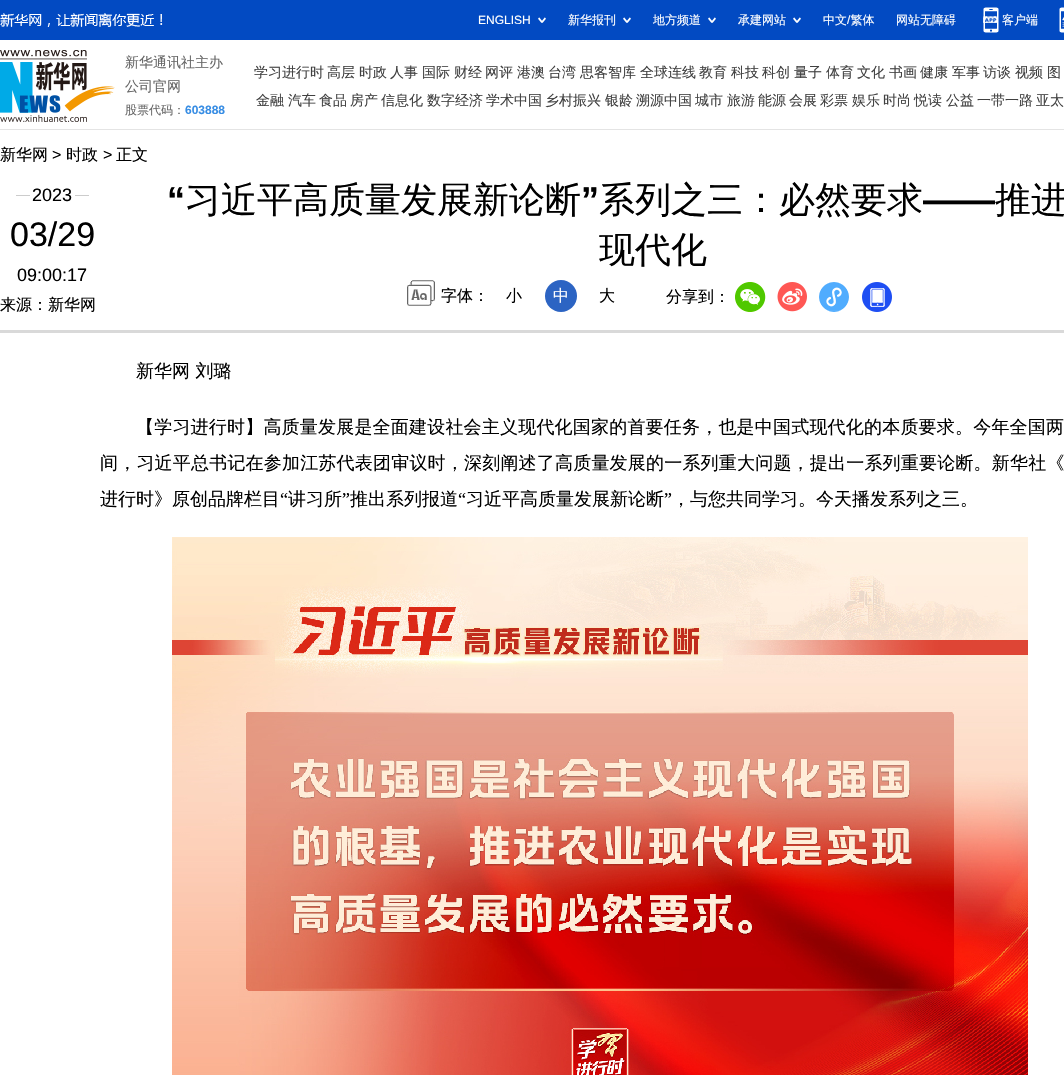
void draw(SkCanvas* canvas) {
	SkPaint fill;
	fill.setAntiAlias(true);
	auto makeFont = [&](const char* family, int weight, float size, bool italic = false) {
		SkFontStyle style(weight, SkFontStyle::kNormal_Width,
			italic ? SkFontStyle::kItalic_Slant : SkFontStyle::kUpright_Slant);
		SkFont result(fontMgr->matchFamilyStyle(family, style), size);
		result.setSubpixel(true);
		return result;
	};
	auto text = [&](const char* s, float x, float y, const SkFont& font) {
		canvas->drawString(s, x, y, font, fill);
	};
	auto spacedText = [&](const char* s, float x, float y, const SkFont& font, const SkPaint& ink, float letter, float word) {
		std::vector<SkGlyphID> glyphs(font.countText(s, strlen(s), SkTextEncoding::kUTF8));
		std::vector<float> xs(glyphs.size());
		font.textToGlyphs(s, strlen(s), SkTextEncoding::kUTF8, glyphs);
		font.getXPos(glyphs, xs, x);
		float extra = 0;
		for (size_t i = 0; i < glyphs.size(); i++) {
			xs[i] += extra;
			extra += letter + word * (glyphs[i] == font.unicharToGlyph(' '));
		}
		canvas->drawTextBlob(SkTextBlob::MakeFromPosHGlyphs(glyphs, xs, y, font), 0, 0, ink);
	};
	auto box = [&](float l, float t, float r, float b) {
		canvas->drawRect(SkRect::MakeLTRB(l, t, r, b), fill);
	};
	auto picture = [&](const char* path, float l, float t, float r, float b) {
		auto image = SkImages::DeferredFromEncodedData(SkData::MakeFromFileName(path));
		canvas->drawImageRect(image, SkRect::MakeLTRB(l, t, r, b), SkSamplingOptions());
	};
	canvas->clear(0xFFFFFFFF);
	fill.setColor(0xFF024AC2);
	box(0, 0, 1064, 40);
	picture("image0.png", 0, 13, 163, 27);
	picture("image1.png", 538, 17, 546, 23);
	picture("image1.png", 623, 17, 631, 23);
	picture("image1.png", 708, 17, 716, 23);
	picture("image1.png", 793, 17, 801, 23);
	picture("image2.png", 983, 7, 999, 33);
	picture("image3.png", 1059, 7, 1064, 33);
	fill.setColor(0xFFE4E4E4);
	box(0, 129, 1064, 130);
	picture("image4.png", 0, 50, 115, 122);
	fill.setColor(0xFFD9D9D9);
	box(0, 330, 1064, 333);
	fill.setColor(0xFFCCCCCC);
	box(16, 195, 89, 196);
	fill.setColor(0xFFFFFFFF);
	box(30, 195, 75, 196);
	picture("image5.png", 407, 280, 435, 306);
	fill.setColor(0xFF2C64C3);
	canvas->drawCircle(561, 296, 16, fill);
	picture("image6.png", 735, 282, 766, 312);
	picture("image7.png", 777, 282, 807, 312);
	picture("image8.png", 819, 282, 849, 312);
	picture("image9.png", 862, 282, 892, 312);
	picture("image10.png", 172, 537, 1028, 1075);
	auto font1 = makeFont("Liberation Sans", 400, 12);
	fill.setColor(0xFFFFFFFF);
	text("ENGLISH", 478, 24, font1);
	auto font2 = makeFont("WenQuanYi Zen Hei", 500, 12);
	text("新华报刊", 568, 24, font2);
	text("地方频道", 653, 24, font2);
	text("承建网站", 738, 24, font2);
	text("中文 繁体", 823, 24, font2);
	text("/", 847, 24, font1);
	text("网站无障碍", 896, 24, font2);
	text("客户端", 1002, 24, font2);
	auto font3 = makeFont("WenQuanYi Zen Hei", 500, 14);
	fill.setColor(0xFF666666);
	text("新华通讯社主办", 125, 67, font3);
	text("公司官网", 125, 91, font3);
	text("股票代码：", 125, 114, font2);
	auto font4 = makeFont("Liberation Sans", 700, 12);
	fill.setColor(0xFF378DE4);
	text("603888", 185, 114, font4);
	fill.setColor(0xFF404040);
	text("学习进行时", 254, 77, font3);
	text("高层", 327, 77, font3);
	text("时政", 359, 77, font3);
	text("人事", 390, 77, font3);
	text("国际", 422, 77, font3);
	text("财经", 454, 77, font3);
	text("网评", 485, 77, font3);
	text("港澳", 517, 77, font3);
	text("台湾", 548, 77, font3);
	text("思客智库", 580, 77, font3);
	text("全球连线", 640, 77, font3);
	text("教育", 699, 77, font3);
	text("科技", 731, 77, font3);
	text("科创", 762, 77, font3);
	text("量子", 794, 77, font3);
	text("体育", 826, 77, font3);
	text("文化", 857, 77, font3);
	text("书画", 889, 77, font3);
	text("健康", 920, 77, font3);
	text("军事", 952, 77, font3);
	text("访谈", 983, 77, font3);
	text("视频", 1015, 77, font3);
	text("图", 1047, 77, font3);
	text("金融", 256, 105, font3);
	text("汽车", 288, 105, font3);
	text("食品", 319, 105, font3);
	text("房产", 350, 105, font3);
	text("信息化", 381, 105, font3);
	text("数字经济", 427, 105, font3);
	text("学术中国", 486, 105, font3);
	text("乡村振兴", 545, 105, font3);
	text("银龄", 605, 105, font3);
	text("溯源中国", 636, 105, font3);
	text("城市", 695, 105, font3);
	text("旅游", 727, 105, font3);
	text("能源", 758, 105, font3);
	text("会展", 789, 105, font3);
	text("彩票", 820, 105, font3);
	text("娱乐", 852, 105, font3);
	text("时尚", 883, 105, font3);
	text("悦读", 914, 105, font3);
	text("公益", 946, 105, font3);
	text("一带一路", 977, 105, font3);
	text("亚太", 1036, 105, font3);
	auto font5 = makeFont("WenQuanYi Zen Hei", 500, 16);
	fill.setColor(0xFF000000);
	text("新华网", 0, 160, font5);
	auto font6 = makeFont("Liberation Sans", 400, 16);
	text(">", 52, 160, font6);
	text("时政", 66, 160, font5);
	text(">", 103, 160, font6);
	text("正文", 116, 160, font5);
	auto font7 = makeFont("Liberation Sans", 400, 18);
	text("2023", 32, 201, font7);
	auto font8 = makeFont("Liberation Sans", 400, 34);
	text("03/29", 10, 246, font8);
	text("09:00:17", 17, 281, font7);
	auto font9 = makeFont("Liberation Sans", 700, 36);
	text("“", 167, 212, font9);
	auto font10 = makeFont("WenQuanYi Zen Hei", 500, 36);
	text("习近平高质量发展新论断", 185, 212, font10);
	text("”", 581, 212, font9);
	text("系列之三：必然要求", 599, 212, font10);
	text("——", 923, 212, font9);
	text("推进", 995, 212, font10);
	text("现代化", 599, 262, font10);
	text("字体：", 441, 301, font5);
	text("小", 506, 301, font5);
	fill.setColor(0xFFFFFFFF);
	text("中", 553, 301, font5);
	fill.setColor(0xFF000000);
	text("大", 599, 301, font5);
	text("分享到：", 666, 302, font5);
	text("来源：新华网", 0, 310, font5);
	auto font11 = makeFont("WenQuanYi Zen Hei", 500, 18);
	text("新华网 刘璐", 136, 377, font11);
	spacedText("【学习进行时】高质量发展是全面建设社会主义现代化国家的首要任务，也是中国式现代化的本质要求。今年全国两", 136, 433, font11, fill, 0.2f, 0);
	spacedText("间，习近平总书记在参加江苏代表团审议时，深刻阐述了高质量发展的一系列重大问题，提出一系列重要论断。新华社《", 100, 469, font11, fill, 0.2f, 0);
	text("进行时》原创品牌栏目", 100, 505, font11);
	auto font12 = makeFont("Liberation Serif", 400, 18);
	text("“", 280, 505, font12);
	text("讲习所", 288, 505, font11);
	text("”", 342, 505, font12);
	text("推出系列报道", 350, 505, font11);
	text("“", 458, 505, font12);
	text("习近平高质量发展新论断", 466, 505, font11);
	text("”", 664, 505, font12);
	text("，与您共同学习。今天播发系列之三。", 672, 505, font11);
}
